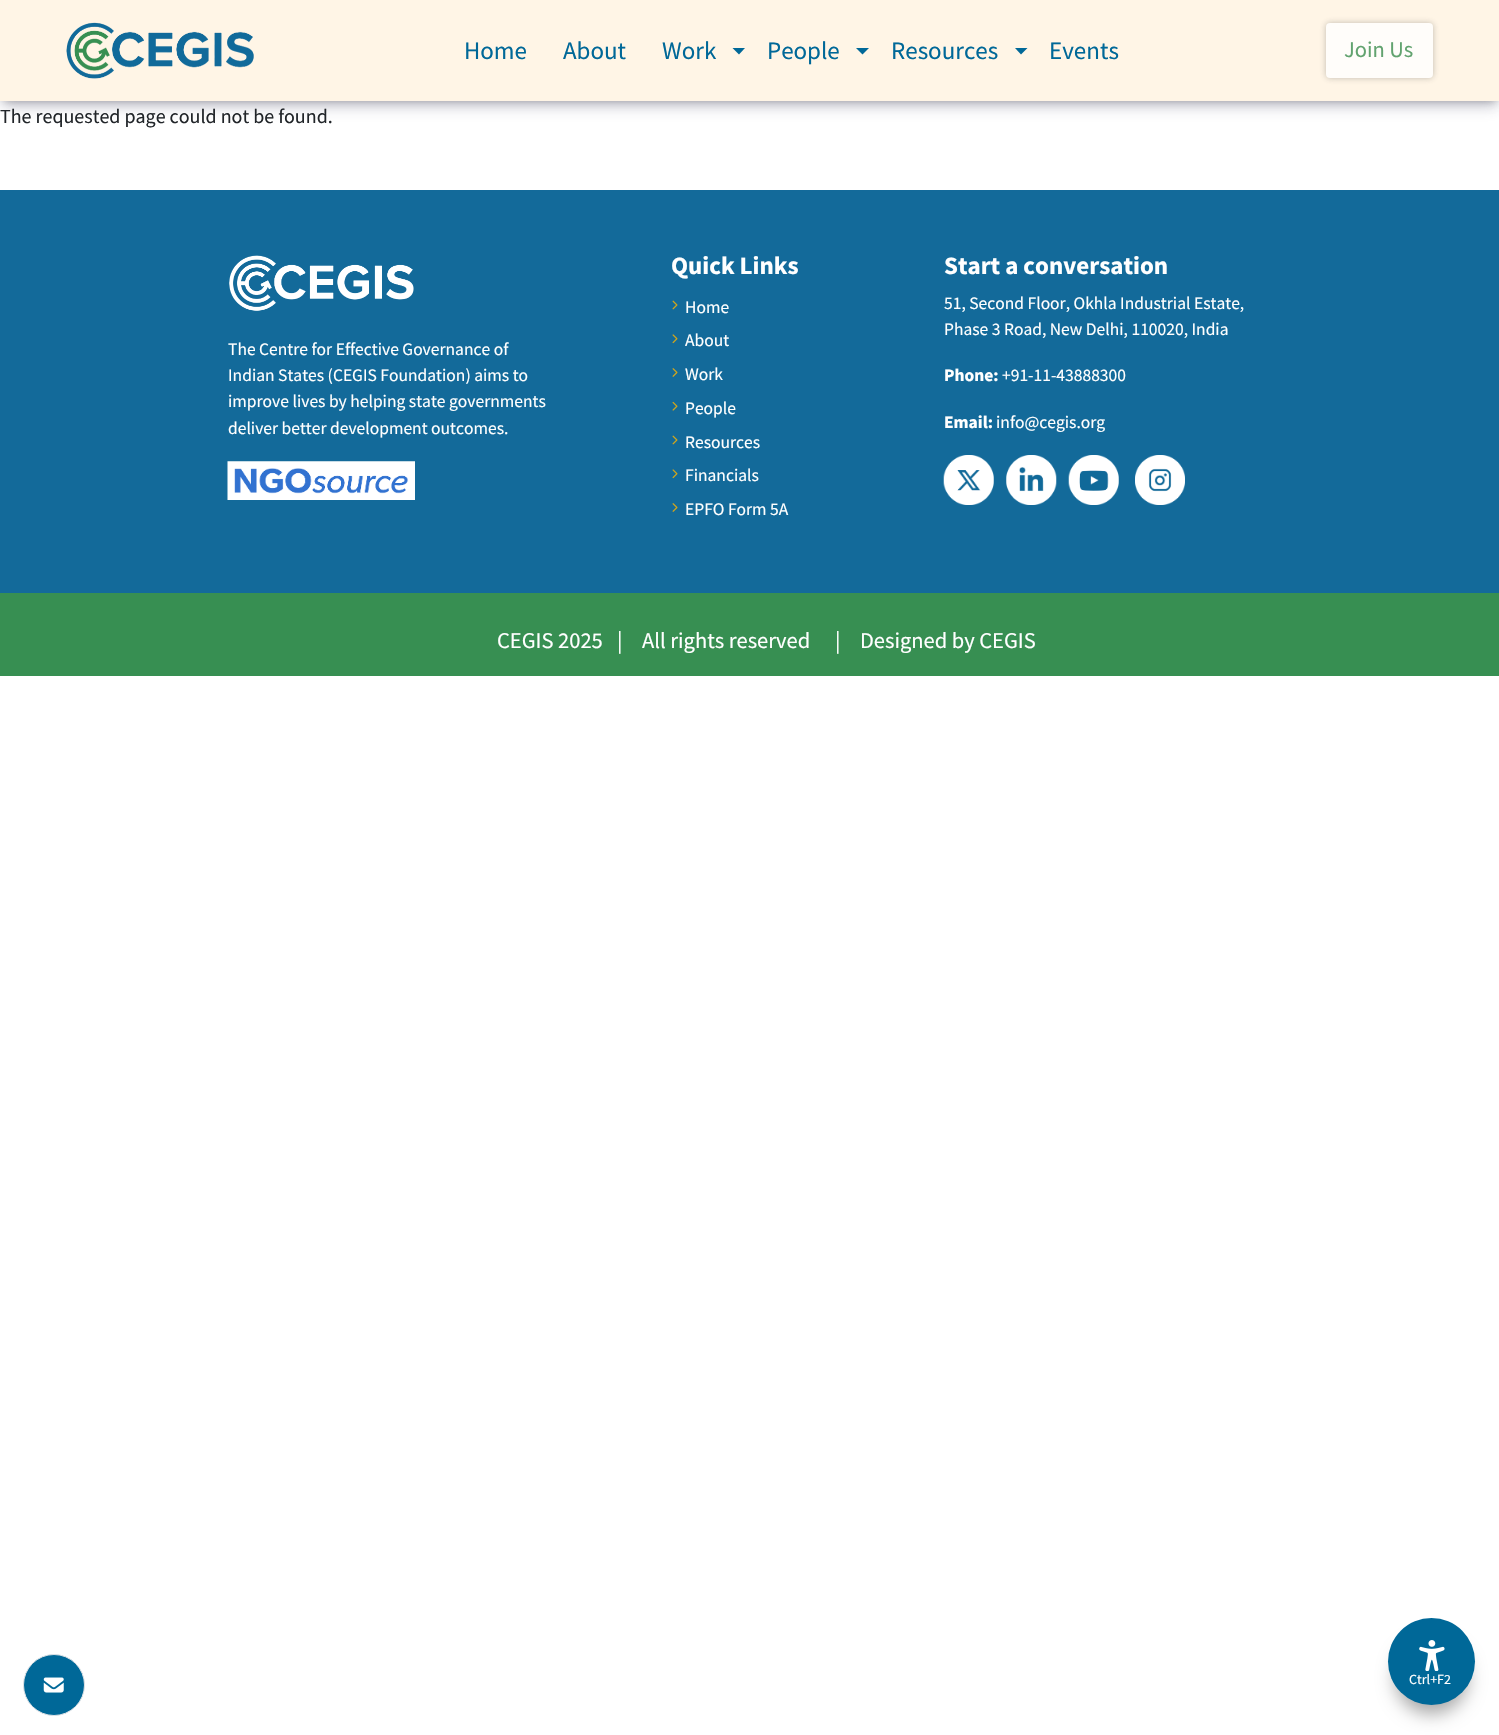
void draw(SkCanvas* canvas) {
	SkPaint fill;
	fill.setAntiAlias(true);
	auto makeFont = [&](const char* family, int weight, float size, bool italic = false) {
		SkFontStyle style(weight, SkFontStyle::kNormal_Width,
			italic ? SkFontStyle::kItalic_Slant : SkFontStyle::kUpright_Slant);
		SkFont result(fontMgr->matchFamilyStyle(family, style), size);
		result.setSubpixel(true);
		return result;
	};
	auto text = [&](const char* s, float x, float y, const SkFont& font) {
		canvas->drawString(s, x, y, font, fill);
	};
	auto box = [&](float l, float t, float r, float b) {
		canvas->drawRect(SkRect::MakeLTRB(l, t, r, b), fill);
	};
	auto roundBox = [&](float l, float t, float r, float b, float radius) {
		canvas->drawRoundRect(SkRect::MakeLTRB(l, t, r, b), radius, radius, fill);
	};
	auto picture = [&](const char* path, float l, float t, float r, float b) {
		auto image = SkImages::DeferredFromEncodedData(SkData::MakeFromFileName(path));
		canvas->drawImageRect(image, SkRect::MakeLTRB(l, t, r, b), SkSamplingOptions());
	};
	canvas->clear(0xFFFFFFFF);
	fill.setColor(0x4D000000);
	fill.setMaskFilter(SkMaskFilter::MakeBlur(kNormal_SkBlurStyle, 4.5f));
	canvas->drawRect(SkRect::MakeLTRB(4, 8, 1496, 101), fill);
	fill.setMaskFilter(nullptr);
	fill.setColor(0x4032325D);
	fill.setMaskFilter(SkMaskFilter::MakeBlur(kNormal_SkBlurStyle, 7.5f));
	canvas->drawRect(SkRect::MakeLTRB(3, 10, 1498, 106), fill);
	fill.setMaskFilter(nullptr);
	fill.setColor(0xFFFFF5E6);
	box(0, 0, 1499, 101);
	picture("image0.png", 66, 22, 254, 79);
	fill.setColor(0xFF006898);
	canvas->drawPath(SkPathBuilder().moveTo(732.5f, 48).lineTo(745, 48).lineTo(739, 54.5f).close().detach(), fill);
	canvas->drawPath(SkPathBuilder().moveTo(856, 48).lineTo(869, 48).lineTo(862.5f, 54.5f).close().detach(), fill);
	canvas->drawPath(SkPathBuilder().moveTo(1015, 48).lineTo(1027.5f, 48).lineTo(1021, 54.5f).close().detach(), fill);
	fill.setColor(0x4D33312E);
	fill.setMaskFilter(SkMaskFilter::MakeBlur(kNormal_SkBlurStyle, 3));
	canvas->drawRoundRect(SkRect::MakeLTRB(1326, 23, 1433, 78), 4, 4, fill);
	fill.setMaskFilter(nullptr);
	fill.setColor(0xFFFFFDFA);
	roundBox(1326, 23, 1433, 78, 4);
	fill.setColor(0xFF136A9A);
	box(0, 190, 1499, 593);
	picture("image1.png", 229, 255, 414, 311);
	picture("image2.png", 227, 461, 415, 500);
	picture("image3.png", 672, 300, 678, 310);
	picture("image4.png", 672, 334, 678, 344);
	picture("image5.png", 672, 368, 678, 377);
	picture("image6.png", 672, 401, 678, 411);
	picture("image3.png", 672, 435, 678, 445);
	picture("image4.png", 672, 469, 678, 479);
	picture("image5.png", 672, 503, 678, 512);
	picture("image7.png", 943, 455, 994, 505);
	picture("image8.png", 1006, 455, 1057, 505);
	picture("image9.png", 1068, 455, 1119, 505);
	picture("image10.png", 1135, 455, 1185, 505);
	fill.setColor(0xFF378F52);
	box(0, 593, 1499, 676);
	fill.setColor(0xFF006898);
	canvas->drawCircle(54, 1685, 30.5f, fill);
	fill.setStyle(SkPaint::kStroke_Style);
	fill.setStrokeWidth(1);
	fill.setColor(0xFFDEE2E6);
	canvas->drawCircle(54, 1685, 30.5f, fill);
	picture("image11.png", 43, 1677, 64, 1693);
	fill.setStyle(SkPaint::kFill_Style);
	fill.setColor(0x59000000);
	fill.setMaskFilter(SkMaskFilter::MakeBlur(kNormal_SkBlurStyle, 9));
	canvas->drawRoundRect(SkRect::MakeLTRB(1395, 1641, 1468, 1714), 36.5f, 36.5f, fill);
	fill.setMaskFilter(nullptr);
	fill.setColor(0xFF006898);
	canvas->drawCircle(1431.5f, 1661.5f, 43.5f, fill);
	picture("image12.png", 1419, 1640, 1445, 1671);
	auto font1 = makeFont("Source Sans Pro", 400, 25);
	text("Home", 464, 59, font1);
	text("About", 563, 59, font1);
	text("Work", 662, 59, font1);
	text("People", 767, 59, font1);
	text("Resources", 891, 59, font1);
	text("Events", 1049, 59, font1);
	auto font2 = makeFont("Source Sans Pro", 400, 22.5f);
	fill.setColor(0xFF62A36F);
	text("Join Us", 1344, 57, font2);
	auto font3 = makeFont("Source Sans Pro", 400, 20);
	fill.setColor(0xFF212529);
	text("The requested page could not be found.", 0, 123, font3);
	auto font4 = makeFont("Source Sans Pro", 400, 17.5f);
	fill.setColor(0xFFFFFFFF);
	text("The Centre for Effective Governance of", 228, 355, font4);
	text("Indian States (CEGIS Foundation) aims to", 228, 381, font4);
	text("improve lives by helping state governments", 228, 407, font4);
	text("deliver better development outcomes.", 228, 434, font4);
	auto font5 = makeFont("Source Sans Pro", 700, 25);
	text("Quick Links", 671, 274, font5);
	text("Home", 685, 313, font4);
	text("About", 685, 346, font4);
	text("Work", 685, 380, font4);
	text("People", 685, 414, font4);
	text("Resources", 685, 448, font4);
	text("Financials", 685, 481, font4);
	text("EPFO Form 5A", 685, 515, font4);
	text("Start a conversation", 944, 274, font5);
	text("51, Second Floor, Okhla Industrial Estate,", 944, 309, font4);
	text("Phase 3 Road, New Delhi, 110020, India", 944, 335, font4);
	auto font6 = makeFont("Source Sans Pro", 700, 17.5f);
	text("Phone:", 944, 381, font6);
	text("+91-11-43888300", 1002, 381, font4);
	text("Email:", 944, 428, font6);
	text("info@cegis.org", 996, 428, font4);
	text("CEGIS 2025", 497, 648, font2);
	text("|", 617, 648, font2);
	text("All rights reserved", 642, 648, font2);
	text("|", 835, 648, font2);
	text("Designed by CEGIS", 860, 648, font2);
	auto font7 = makeFont("Source Sans Pro", 400, 14);
	text("Ctrl+F2", 1409, 1684, font7);
}
